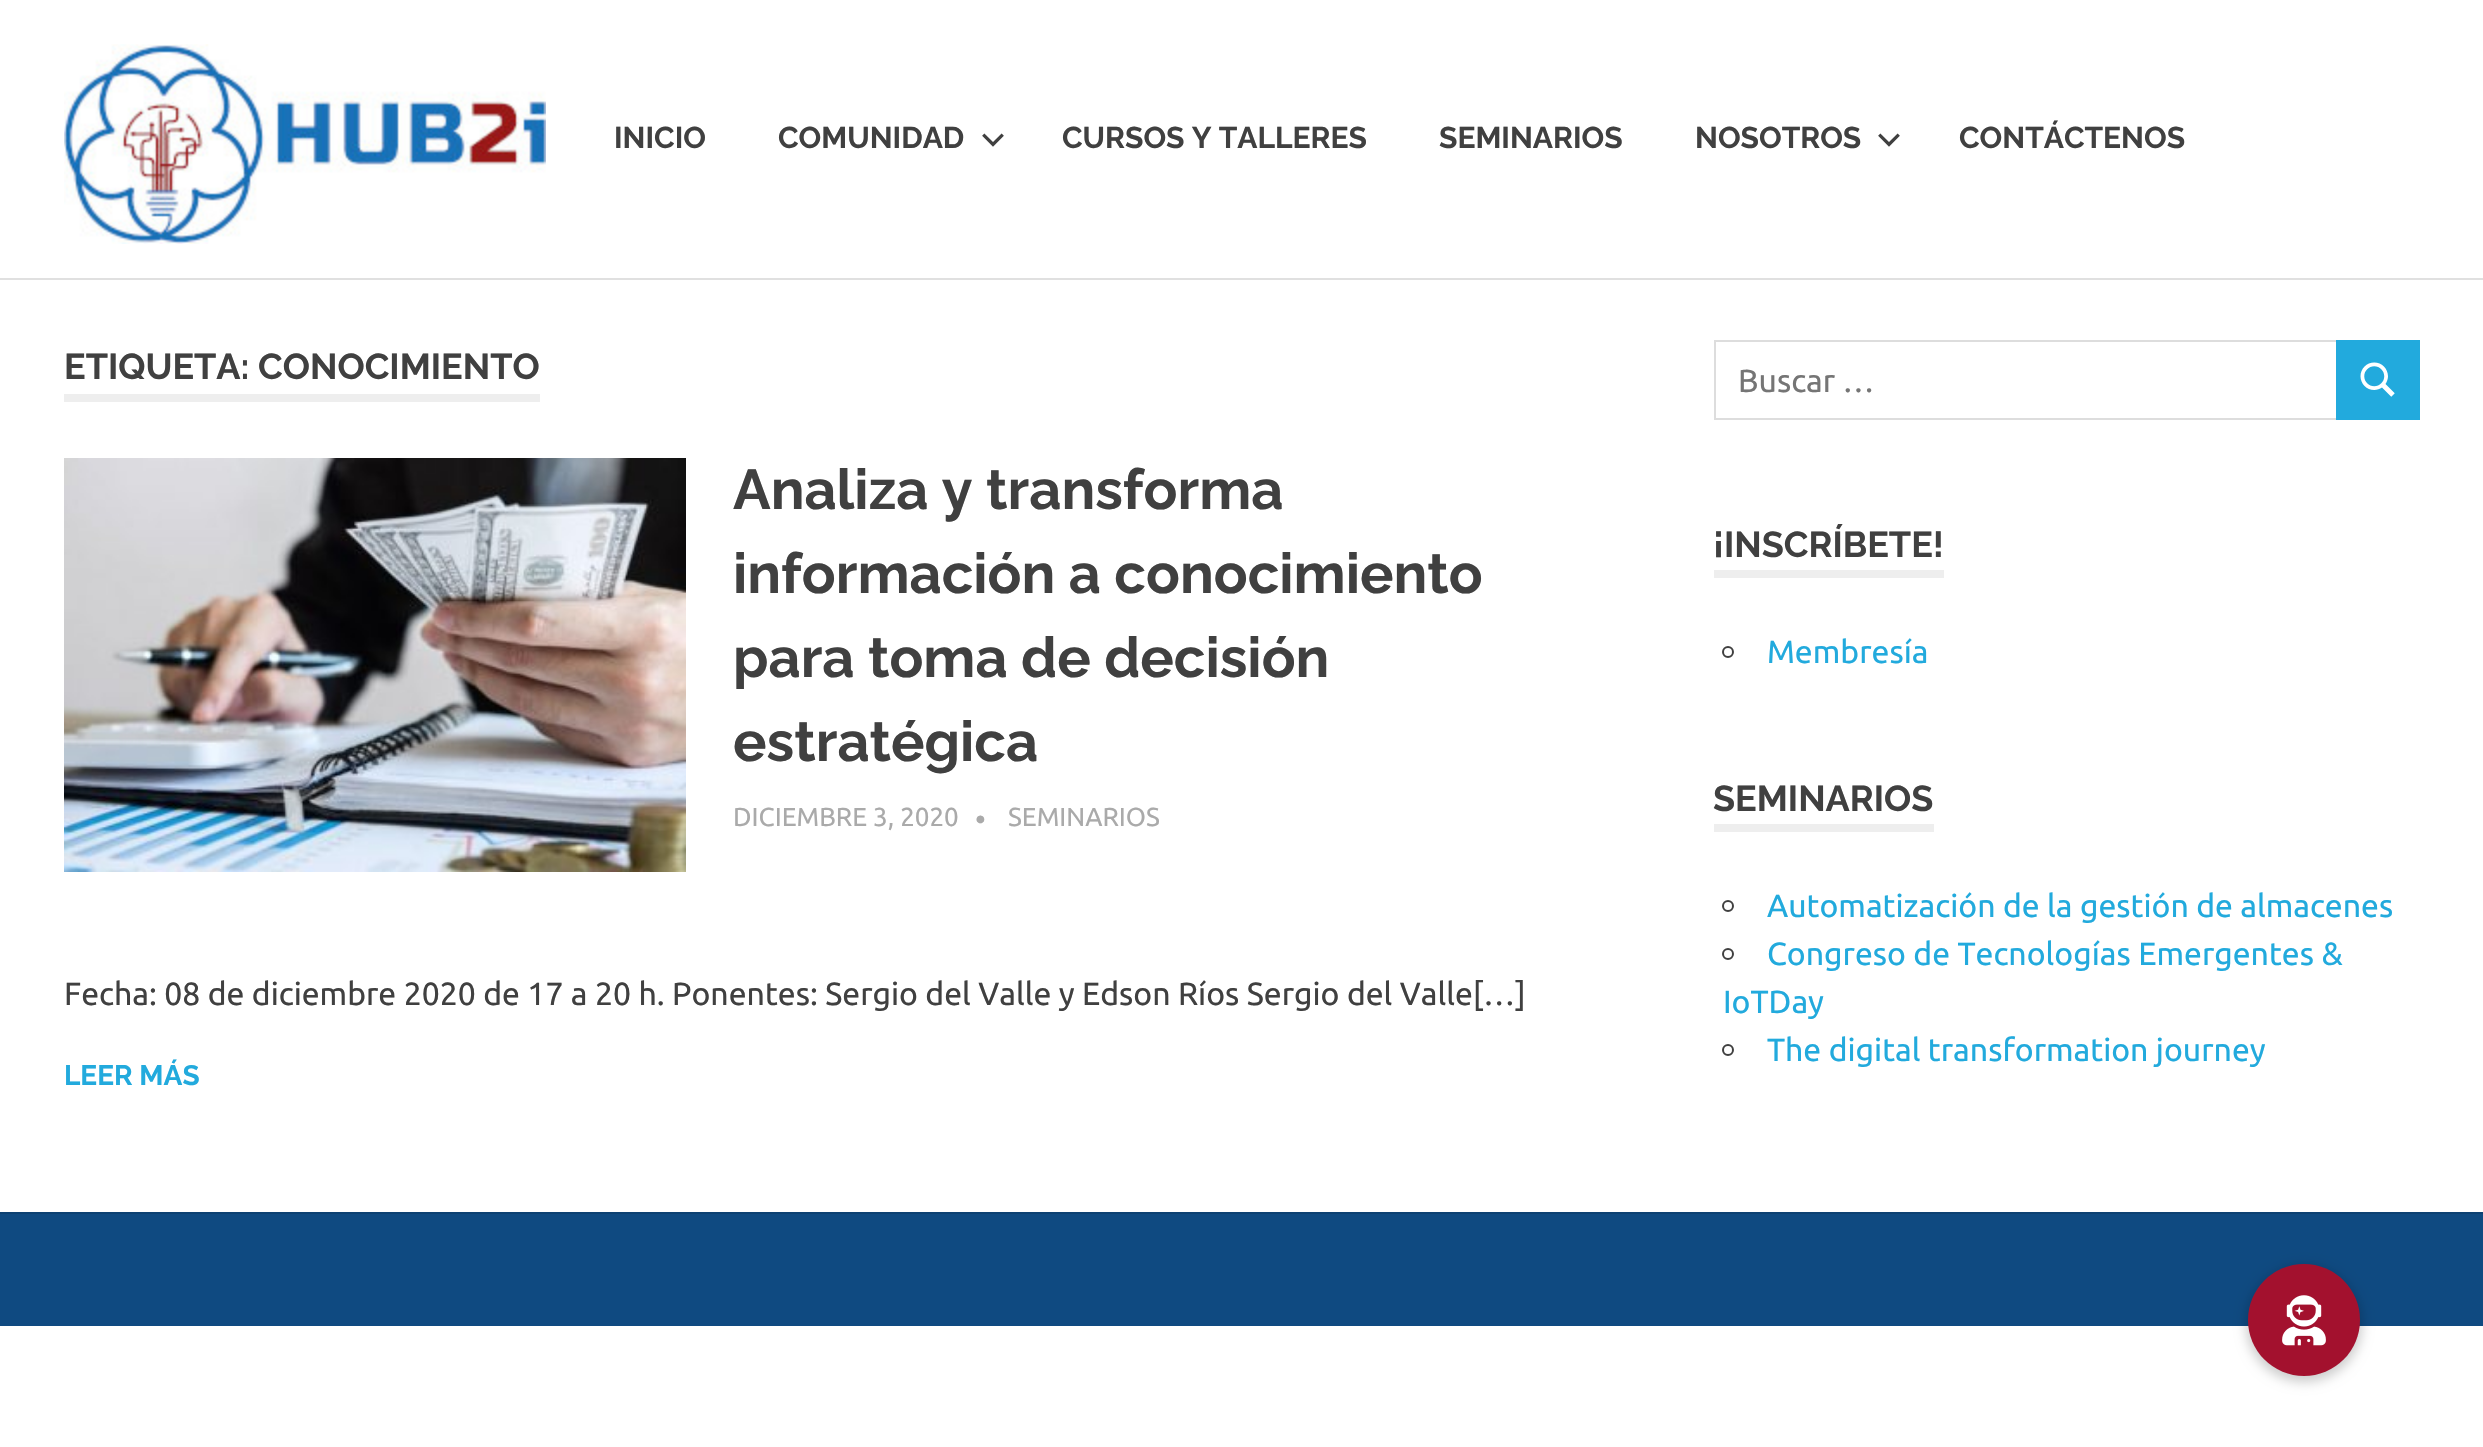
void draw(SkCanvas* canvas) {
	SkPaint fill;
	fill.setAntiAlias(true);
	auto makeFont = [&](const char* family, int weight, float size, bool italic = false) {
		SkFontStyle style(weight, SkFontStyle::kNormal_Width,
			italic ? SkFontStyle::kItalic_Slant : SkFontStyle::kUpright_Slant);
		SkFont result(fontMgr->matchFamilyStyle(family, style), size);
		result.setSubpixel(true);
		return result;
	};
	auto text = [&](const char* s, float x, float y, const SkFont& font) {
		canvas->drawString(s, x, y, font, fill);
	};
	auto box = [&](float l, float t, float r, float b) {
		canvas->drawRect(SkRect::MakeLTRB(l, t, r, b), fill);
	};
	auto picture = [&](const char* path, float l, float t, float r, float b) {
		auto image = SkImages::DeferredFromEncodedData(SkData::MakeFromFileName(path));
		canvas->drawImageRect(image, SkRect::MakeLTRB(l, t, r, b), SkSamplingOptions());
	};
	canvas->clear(0xFFFFFFFF);
	fill.setColor(0xFFE0E0E0);
	box(0, 278, 2483, 280);
	picture("image0.png", 64, 44, 546, 244);
	picture("image1.png", 982, 133, 1004, 147);
	picture("image1.png", 1878, 133, 1900, 147);
	fill.setColor(0xFFEEEEEE);
	box(64, 394, 540, 402);
	picture("image2.png", 64, 458, 686, 872);
	fill.setStyle(SkPaint::kStroke_Style);
	fill.setStrokeWidth(2);
	fill.setColor(0xFFDDDDDD);
	canvas->drawRect(SkRect::MakeLTRB(1715, 341, 2337, 419), fill);
	fill.setStyle(SkPaint::kFill_Style);
	fill.setColor(0xFF22AADD);
	box(2336, 340, 2420, 420);
	picture("image3.png", 2360, 362, 2395, 397);
	fill.setColor(0xFFEEEEEE);
	box(1714, 570, 1944, 578);
	fill.setStyle(SkPaint::kStroke_Style);
	fill.setColor(0xFF404040);
	canvas->drawCircle(1728, 652, 5, fill);
	fill.setStyle(SkPaint::kFill_Style);
	fill.setColor(0xFFEEEEEE);
	box(1714, 824, 1934, 832);
	fill.setStyle(SkPaint::kStroke_Style);
	fill.setColor(0xFF404040);
	canvas->drawCircle(1728, 906, 5, fill);
	canvas->drawCircle(1728, 954, 5, fill);
	canvas->drawCircle(1728, 1050, 5, fill);
	fill.setStyle(SkPaint::kFill_Style);
	fill.setColor(0xFF0F4A81);
	box(0, 1214, 2483, 1326);
	fill.setColor(0xFF0D4172);
	box(0, 1212, 2483, 1214);
	fill.setColor(0x33000000);
	fill.setMaskFilter(SkMaskFilter::MakeBlur(kNormal_SkBlurStyle, 6));
	canvas->drawRoundRect(SkRect::MakeLTRB(2246, 1266, 2362, 1382), 58, 58, fill);
	fill.setMaskFilter(nullptr);
	fill.setColor(0xFFA3112E);
	canvas->drawCircle(2304, 1320, 56, fill);
	picture("image4.png", 2282, 1295, 2326, 1346);
	auto font1 = makeFont("Raleway", 700, 30);
	fill.setColor(0xFF404040);
	text("INICIO", 614, 148, font1);
	text("COMUNIDAD", 778, 148, font1);
	text("CURSOS Y TALLERES", 1062, 148, font1);
	text("SEMINARIOS", 1439, 148, font1);
	text("NOSOTROS", 1695, 148, font1);
	text("CONTÁCTENOS", 1959, 148, font1);
	auto font2 = makeFont("Raleway", 700, 36);
	text("ETIQUETA: CONOCIMIENTO", 64, 379, font2);
	auto font3 = makeFont("Raleway", 700, 56);
	text("Analiza y transforma", 733, 509, font3);
	text("información a conocimiento", 733, 593, font3);
	text("para toma de decisión", 733, 677, font3);
	text("estratégica", 733, 761, font3);
	auto font4 = makeFont("Ubuntu", 400, 26);
	fill.setColor(0xFFAAAAAA);
	text("DICIEMBRE 3, 2020", 733, 826, font4);
	auto font5 = makeFont("Ubuntu", 400, 30);
	text("•", 975, 830, font5);
	text("SEMINARIOS", 1008, 826, font4);
	auto font6 = makeFont("Ubuntu", 400, 32);
	fill.setColor(0xFF404040);
	text("Fecha: 08 de diciembre 2020 de 17 a 20 h. Ponentes: Sergio del Valle y Edson Ríos Sergio del Valle[…]", 64, 1005, font6);
	auto font7 = makeFont("Raleway", 700, 28);
	fill.setColor(0xFF22AADD);
	text("LEER MÁS", 64, 1085, font7);
	fill.setColor(0xFF757575);
	text("Buscar …", 1738, 392, font6);
	fill.setColor(0xFF404040);
	text("¡INSCRÍBETE!", 1713, 557, font2);
	fill.setColor(0xFF22AADD);
	text("Membresía", 1767, 663, font6);
	fill.setColor(0xFF404040);
	text("SEMINARIOS", 1713, 811, font2);
	fill.setColor(0xFF22AADD);
	text("Automatización de la gestión de almacenes", 1767, 917, font6);
	text("Congreso de Tecnologías Emergentes &", 1767, 965, font6);
	text("IoTDay", 1723, 1013, font6);
	text("The digital transformation journey", 1767, 1061, font6);
}
